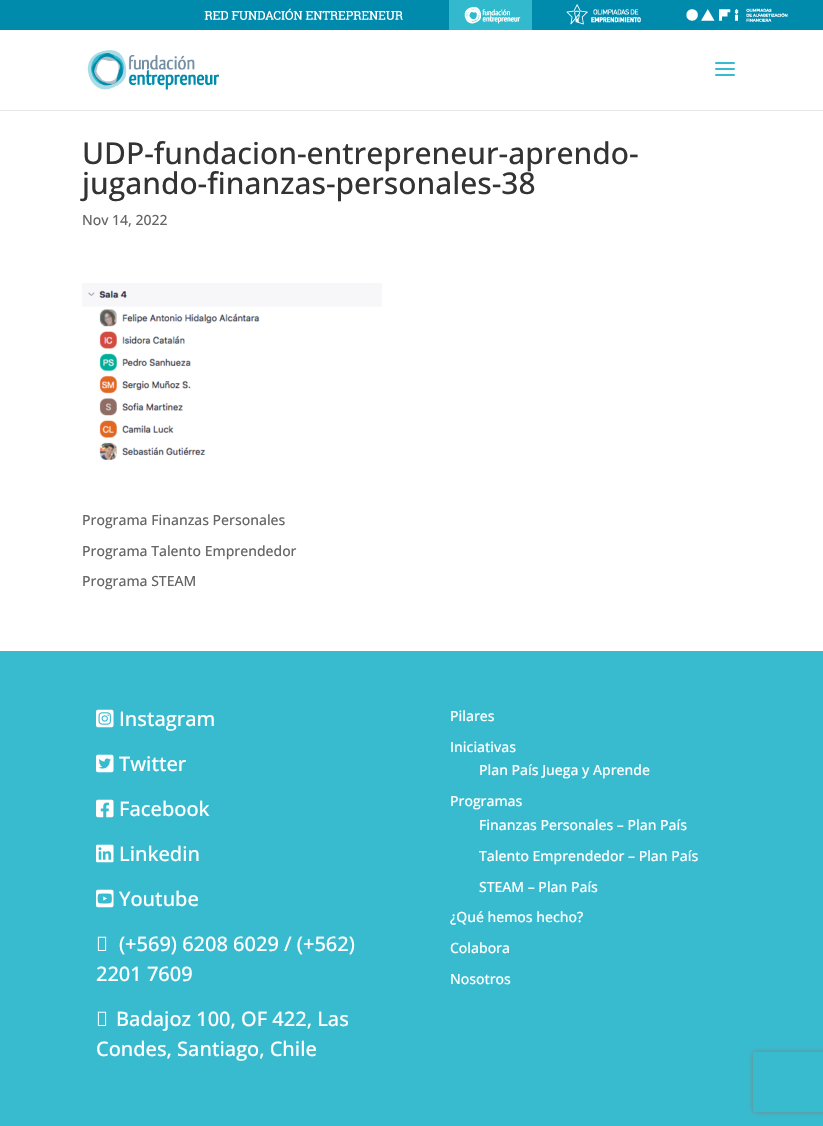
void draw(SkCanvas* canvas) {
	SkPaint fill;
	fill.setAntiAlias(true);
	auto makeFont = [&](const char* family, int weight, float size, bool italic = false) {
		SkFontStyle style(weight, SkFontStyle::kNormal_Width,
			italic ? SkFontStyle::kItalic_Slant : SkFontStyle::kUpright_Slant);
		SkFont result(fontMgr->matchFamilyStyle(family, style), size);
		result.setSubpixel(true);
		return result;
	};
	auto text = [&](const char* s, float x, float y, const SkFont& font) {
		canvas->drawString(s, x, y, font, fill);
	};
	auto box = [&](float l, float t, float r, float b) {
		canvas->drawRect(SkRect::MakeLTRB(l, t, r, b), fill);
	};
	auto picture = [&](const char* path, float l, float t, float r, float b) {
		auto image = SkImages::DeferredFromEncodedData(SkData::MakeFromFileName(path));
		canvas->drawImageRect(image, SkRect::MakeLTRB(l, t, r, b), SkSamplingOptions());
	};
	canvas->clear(0xFFFFFFFF);
	fill.setColor(0xFF008AAB);
	box(0, 0, 823, 30);
	picture("image0.png", 197, 8, 403, 24);
	picture("image1.png", 449, 0, 532, 30);
	picture("image2.png", 565, 4, 644, 26);
	picture("image3.png", 685, 8, 788, 24);
	fill.setColor(0xFFE6E6E6);
	box(0, 110, 823, 111);
	picture("image4.png", 87, 50, 219, 90);
	picture("image5.png", 715, 62, 735, 76);
	picture("image6.png", 82, 283, 382, 460);
	fill.setColor(0xFF38BBCF);
	box(0, 651, 823, 1126);
	picture("image7.png", 96, 709, 114, 728);
	picture("image8.png", 96, 754, 114, 773);
	picture("image9.png", 96, 799, 114, 818);
	picture("image10.png", 96, 844, 114, 863);
	picture("image11.png", 96, 889, 114, 908);
	picture("image12.png", 97, 936, 107, 951);
	picture("image12.png", 97, 1011, 107, 1026);
	canvas->save();
	canvas->clipPath(SkPathBuilder(SkPathFillType::kEvenOdd).moveTo(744, 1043).lineTo(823, 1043).lineTo(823, 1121).lineTo(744, 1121).close().moveTo(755, 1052).lineTo(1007, 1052).cubicTo(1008, 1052, 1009, 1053, 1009, 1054).lineTo(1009, 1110).cubicTo(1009, 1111, 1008, 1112, 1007, 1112).lineTo(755, 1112).cubicTo(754, 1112, 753, 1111, 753, 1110).lineTo(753, 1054).cubicTo(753, 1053, 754, 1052, 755, 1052).close().detach(), true);
	fill.setColor(0xFF808080);
	fill.setMaskFilter(SkMaskFilter::MakeBlur(kNormal_SkBlurStyle, 2.5f));
	canvas->drawRoundRect(SkRect::MakeLTRB(753, 1052, 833, 1112), 2, 2, fill);
	fill.setMaskFilter(nullptr);
	canvas->restore();
	auto font1 = makeFont("Open Sans", 500, 30);
	fill.setColor(0xFF333333);
	text("UDP-fundacion-entrepreneur-aprendo-", 82, 164, font1);
	text("jugando-finanzas-personales-38", 82, 194, font1);
	auto font2 = makeFont("Open Sans", 500, 14);
	fill.setColor(0xFF666666);
	text("Nov 14, 2022", 82, 225, font2);
	text("Programa Finanzas Personales", 82, 525, font2);
	text("Programa Talento Emprendedor", 82, 556, font2);
	text("Programa STEAM", 82, 586, font2);
	auto font3 = makeFont("Open Sans", 500, 20);
	fill.setColor(0xFFFFFFFF);
	text("Instagram", 119, 726, font3);
	text("Twitter", 119, 771, font3);
	text("Facebook", 119, 816, font3);
	text("Linkedin", 119, 861, font3);
	text("Youtube", 119, 906, font3);
	text("(+569) 6208 6029 / (+562)", 119, 951, font3);
	text("2201 7609", 96, 981, font3);
	text("Badajoz 100, OF 422, Las", 116, 1026, font3);
	text("Condes, Santiago, Chile", 96, 1056, font3);
	text("Pilares", 450, 721, font2);
	text("Iniciativas", 450, 752, font2);
	text("Plan País Juega y Aprende", 479, 775, font2);
	text("Programas", 450, 806, font2);
	text("Finanzas Personales – Plan País", 479, 830, font2);
	text("Talento Emprendedor – Plan País", 479, 861, font2);
	text("STEAM – Plan País", 479, 892, font2);
	text("¿Qué hemos hecho?", 450, 922, font2);
	text("Colabora", 450, 953, font2);
	text("Nosotros", 450, 984, font2);
}
